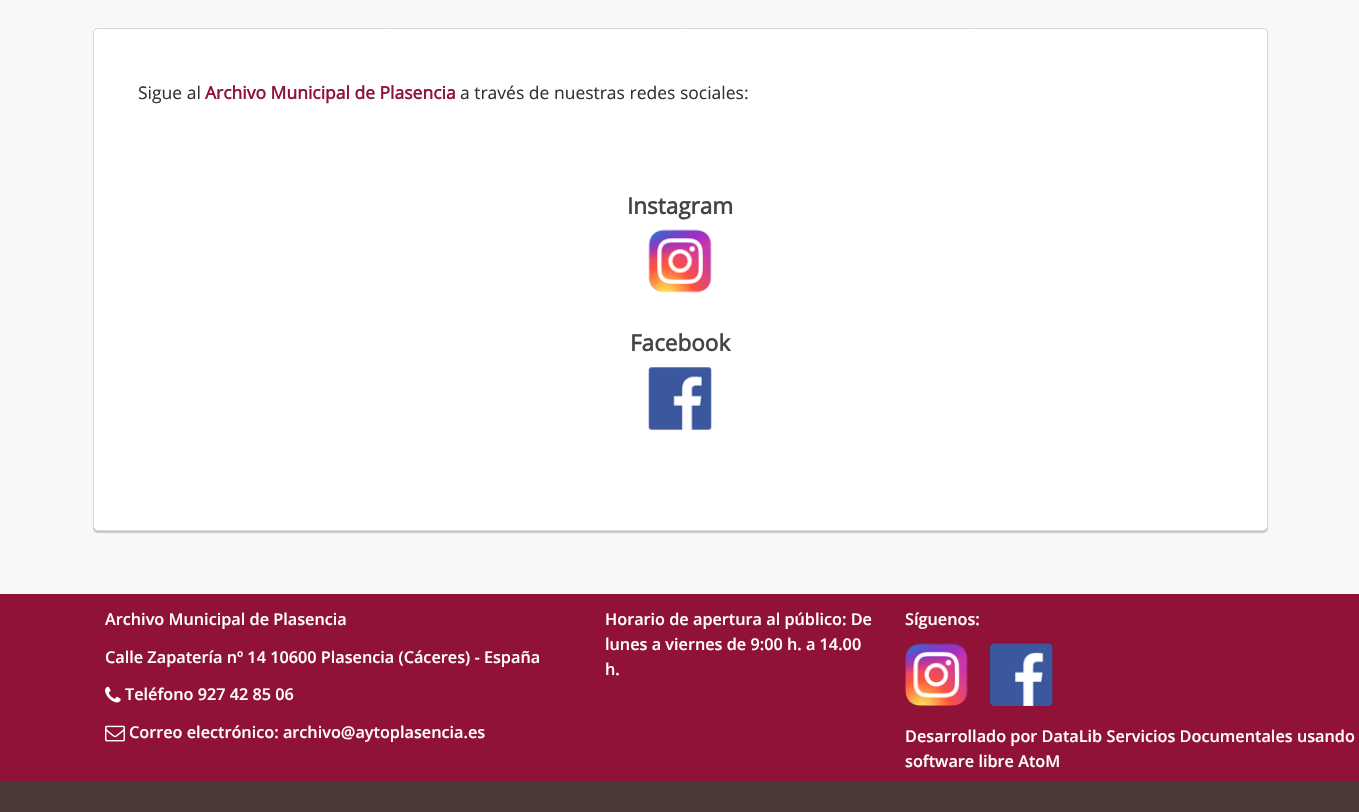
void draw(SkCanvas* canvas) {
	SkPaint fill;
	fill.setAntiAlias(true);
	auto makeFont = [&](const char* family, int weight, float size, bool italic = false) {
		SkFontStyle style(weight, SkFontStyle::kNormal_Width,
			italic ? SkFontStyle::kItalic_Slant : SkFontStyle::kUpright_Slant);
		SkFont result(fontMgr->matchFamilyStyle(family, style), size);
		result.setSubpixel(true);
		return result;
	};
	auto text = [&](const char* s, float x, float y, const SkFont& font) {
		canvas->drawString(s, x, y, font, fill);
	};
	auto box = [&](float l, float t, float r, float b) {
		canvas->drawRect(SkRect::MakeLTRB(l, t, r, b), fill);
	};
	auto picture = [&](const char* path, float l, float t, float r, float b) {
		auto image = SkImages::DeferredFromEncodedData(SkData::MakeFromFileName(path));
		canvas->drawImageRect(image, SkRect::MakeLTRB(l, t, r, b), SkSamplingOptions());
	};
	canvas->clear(0xFFF8F8F8);
	fill.setColor(0x33000000);
	fill.setMaskFilter(SkMaskFilter::MakeBlur(kNormal_SkBlurStyle, 0.5f));
	canvas->drawRoundRect(SkRect::MakeLTRB(93, 29, 1268, 533), 5, 5, fill);
	fill.setMaskFilter(nullptr);
	fill.setColor(0xFFFFFFFF);
	canvas->drawRoundRect(SkRect::MakeLTRB(93.5f, 28.5f, 1267.5f, 530.5f), 4.5f, 4.5f, fill);
	fill.setStyle(SkPaint::kStroke_Style);
	fill.setStrokeWidth(1);
	fill.setColor(0xFFD9D9D9);
	canvas->drawRoundRect(SkRect::MakeLTRB(93.5f, 28.5f, 1267.5f, 530.5f), 4.5f, 4.5f, fill);
	picture("image0.png", 648, 229, 712, 293);
	picture("image1.png", 648, 367, 712, 430);
	fill.setStyle(SkPaint::kFill_Style);
	fill.setColor(0xFF901237);
	box(0, 594, 1359, 781);
	fill.setColor(0xFF493A38);
	box(0, 781, 1359, 812);
	picture("image2.png", 105, 686, 121, 703);
	picture("image3.png", 105, 725, 125, 742);
	picture("image4.png", 905, 643, 968, 706);
	picture("image5.png", 990, 643, 1053, 706);
	auto font1 = makeFont("Open Sans", 400, 17.5f);
	fill.setColor(0xFF333333);
	text("Sigue al", 138, 99, font1);
	auto font2 = makeFont("Open Sans", 700, 17.5f);
	fill.setColor(0xFF901237);
	text("Archivo Municipal de Plasencia", 205, 99, font2);
	fill.setColor(0xFF333333);
	text("a través de nuestras redes sociales:", 460, 99, font1);
	auto font3 = makeFont("Open Sans", 700, 22.5f);
	fill.setColor(0xFF444444);
	text("Instagram", 627, 214, font3);
	text("Facebook", 630, 351, font3);
	auto font4 = makeFont("Open Sans", 600, 16.25f);
	fill.setColor(0xFFFFFFFF);
	text("Archivo Municipal de Plasencia", 105, 625, font4);
	text("Calle Zapatería nº 14 10600 Plasencia (Cáceres) - España", 105, 663, font4);
	text("Teléfono 927 42 85 06", 125, 700, font4);
	text("Correo electrónico: archivo@aytoplasencia.es", 129, 738, font4);
	text("Horario de apertura al público: De", 605, 625, font4);
	text("lunes a viernes de 9:00 h. a 14.00", 605, 650, font4);
	text("h.", 605, 675, font4);
	text("Síguenos:", 905, 625, font4);
	text("Desarrollado por DataLib Servicios Documentales usando", 905, 742, font4);
	text("software libre AtoM", 905, 767, font4);
}
